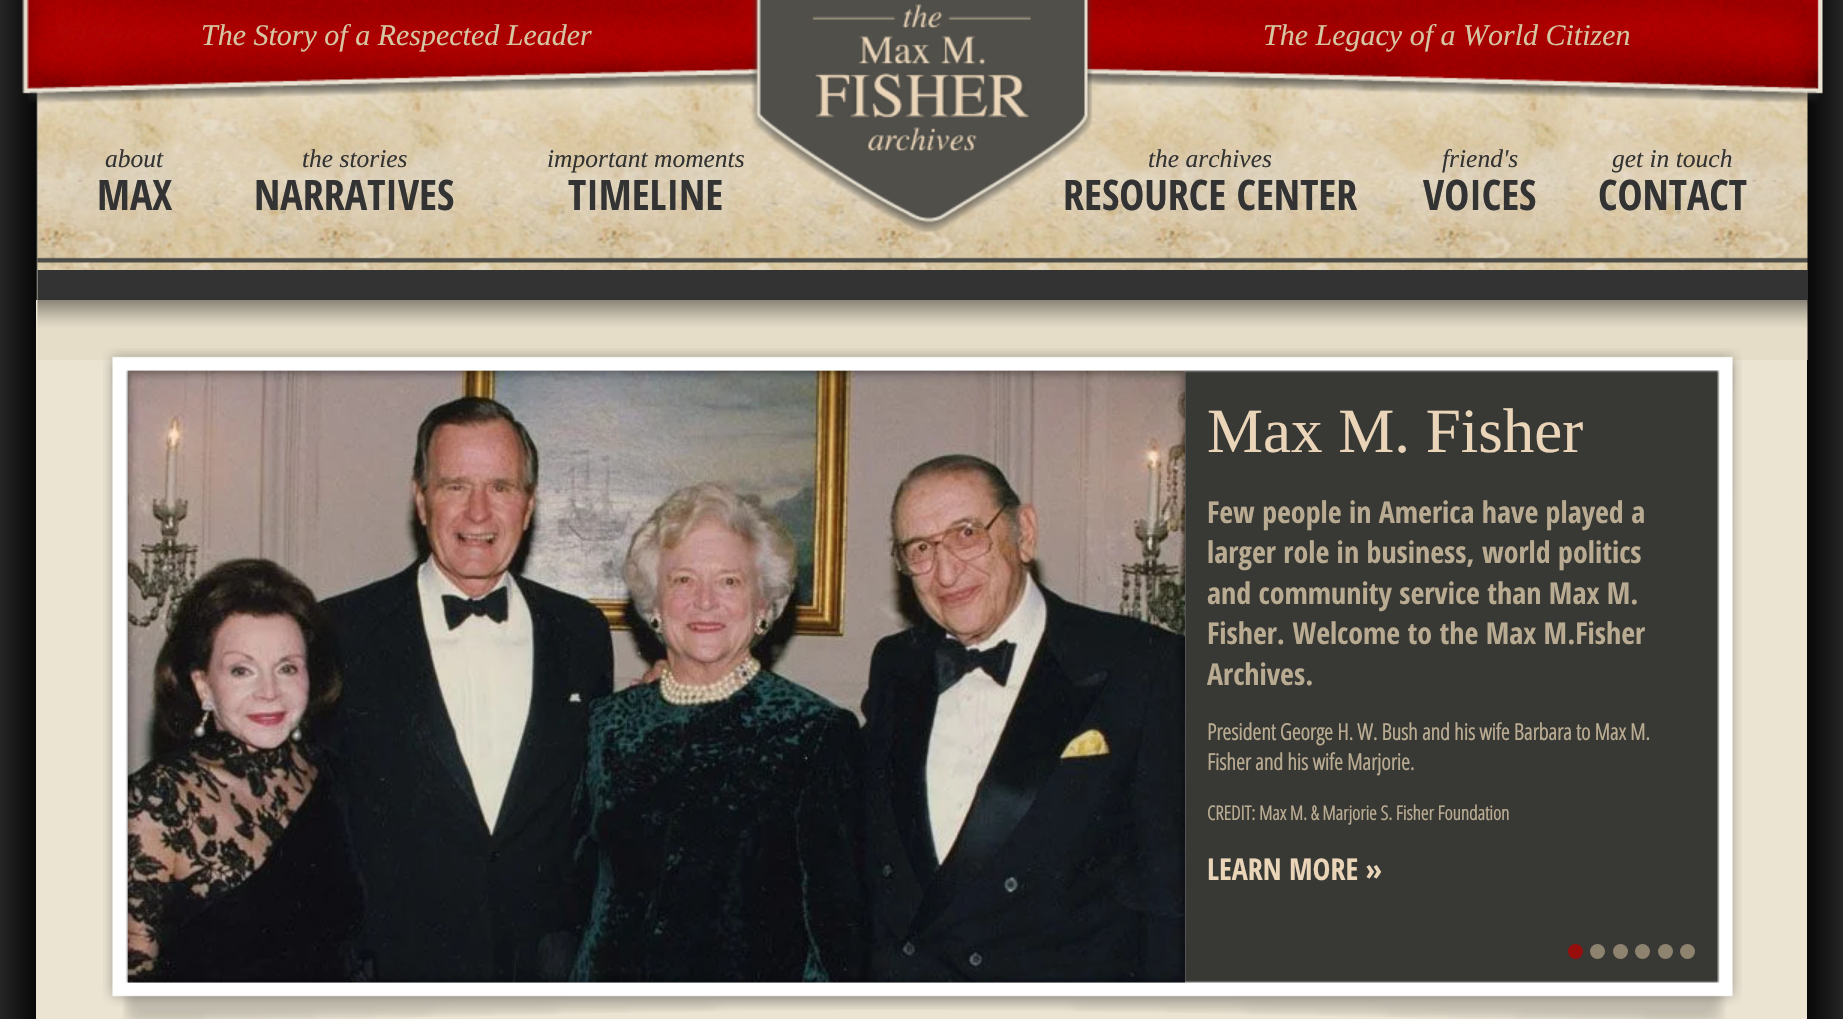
void draw(SkCanvas* canvas) {
	SkPaint fill;
	fill.setAntiAlias(true);
	auto makeFont = [&](const char* family, int weight, float size, bool italic = false) {
		SkFontStyle style(weight, SkFontStyle::kNormal_Width,
			italic ? SkFontStyle::kItalic_Slant : SkFontStyle::kUpright_Slant);
		SkFont result(fontMgr->matchFamilyStyle(family, style), size);
		result.setSubpixel(true);
		return result;
	};
	auto text = [&](const char* s, float x, float y, const SkFont& font) {
		canvas->drawString(s, x, y, font, fill);
	};
	auto box = [&](float l, float t, float r, float b) {
		canvas->drawRect(SkRect::MakeLTRB(l, t, r, b), fill);
	};
	auto picture = [&](const char* path, float l, float t, float r, float b) {
		auto image = SkImages::DeferredFromEncodedData(SkData::MakeFromFileName(path));
		canvas->drawImageRect(image, SkRect::MakeLTRB(l, t, r, b), SkSamplingOptions());
	};
	canvas->clear(0xFF333333);
	picture("image0.png", 0, 0, 1843, 1019);
	picture("image1.png", 22, 0, 1823, 270);
	fill.setColor(0xFF333333);
	box(38, 270, 1808, 300);
	picture("image2.png", 812, 4, 1031, 152);
	fill.setColor(0xFFEBE4D3);
	box(36, 300, 1807, 1019);
	picture("image3.png", 37, 300, 1808, 360);
	picture("image4.png", 103, 348, 1742, 1019);
	picture("image5.png", 127, 370, 1185, 983);
	fill.setColor(0xFF980E0D);
	canvas->drawCircle(1575.5f, 951.5f, 7.5f, fill);
	fill.setColor(0xFF8D836F);
	canvas->drawCircle(1597.5f, 951.5f, 7.5f, fill);
	canvas->drawCircle(1620.5f, 951.5f, 7.5f, fill);
	canvas->drawCircle(1642.5f, 951.5f, 7.5f, fill);
	canvas->drawCircle(1665.5f, 951.5f, 7.5f, fill);
	canvas->drawCircle(1687.5f, 951.5f, 7.5f, fill);
	auto font1 = makeFont("Liberation Serif", 400, 30, true);
	fill.setColor(0xFFD6C6A3);
	text("The Story of a Respected Leader", 201, 45, font1);
	text("The Legacy of a World Citizen", 1263, 45, font1);
	auto font2 = makeFont("Liberation Serif", 400, 25.5f, true);
	fill.setColor(0xFF333333);
	text("about", 105, 167, font2);
	auto font3 = makeFont("Open Sans Condensed", 700, 42);
	text("MAX", 97, 210, font3);
	text("the stories", 302, 167, font2);
	text("NARRATIVES", 254, 210, font3);
	text("important moments", 547, 167, font2);
	text("TIMELINE", 568, 210, font3);
	text("the archives", 1148, 167, font2);
	text("RESOURCE CENTER", 1063, 210, font3);
	text("friend's", 1442, 167, font2);
	text("VOICES", 1423, 210, font3);
	text("get in touch", 1612, 167, font2);
	text("CONTACT", 1598, 210, font3);
	auto font4 = makeFont("Liberation Serif", 400, 63);
	fill.setColor(0xFFEAD5B9);
	text("Max M. Fisher", 1207, 452, font4);
	auto font5 = makeFont("Open Sans Condensed", 700, 30);
	fill.setColor(0xFFB9AB91);
	text("Few people in America have played a", 1207, 523, font5);
	text("larger role in business, world politics", 1207, 563, font5);
	text("and community service than Max M.", 1207, 604, font5);
	text("Fisher. Welcome to the Max M.Fisher", 1207, 644, font5);
	text("Archives.", 1207, 685, font5);
	auto font6 = makeFont("Open Sans", 700, 22.5f);
	text("President George H. W. Bush and his wife Barbara to Max M.", 1207, 740, font6);
	text("Fisher and his wife Marjorie.", 1207, 770, font6);
	auto font7 = makeFont("Open Sans", 700, 19.5f);
	text("CREDIT: Max M. & Marjorie S. Fisher Foundation", 1207, 820, font7);
	fill.setColor(0xFFEAD5B9);
	text("LEARN MORE »", 1207, 880, font5);
}
